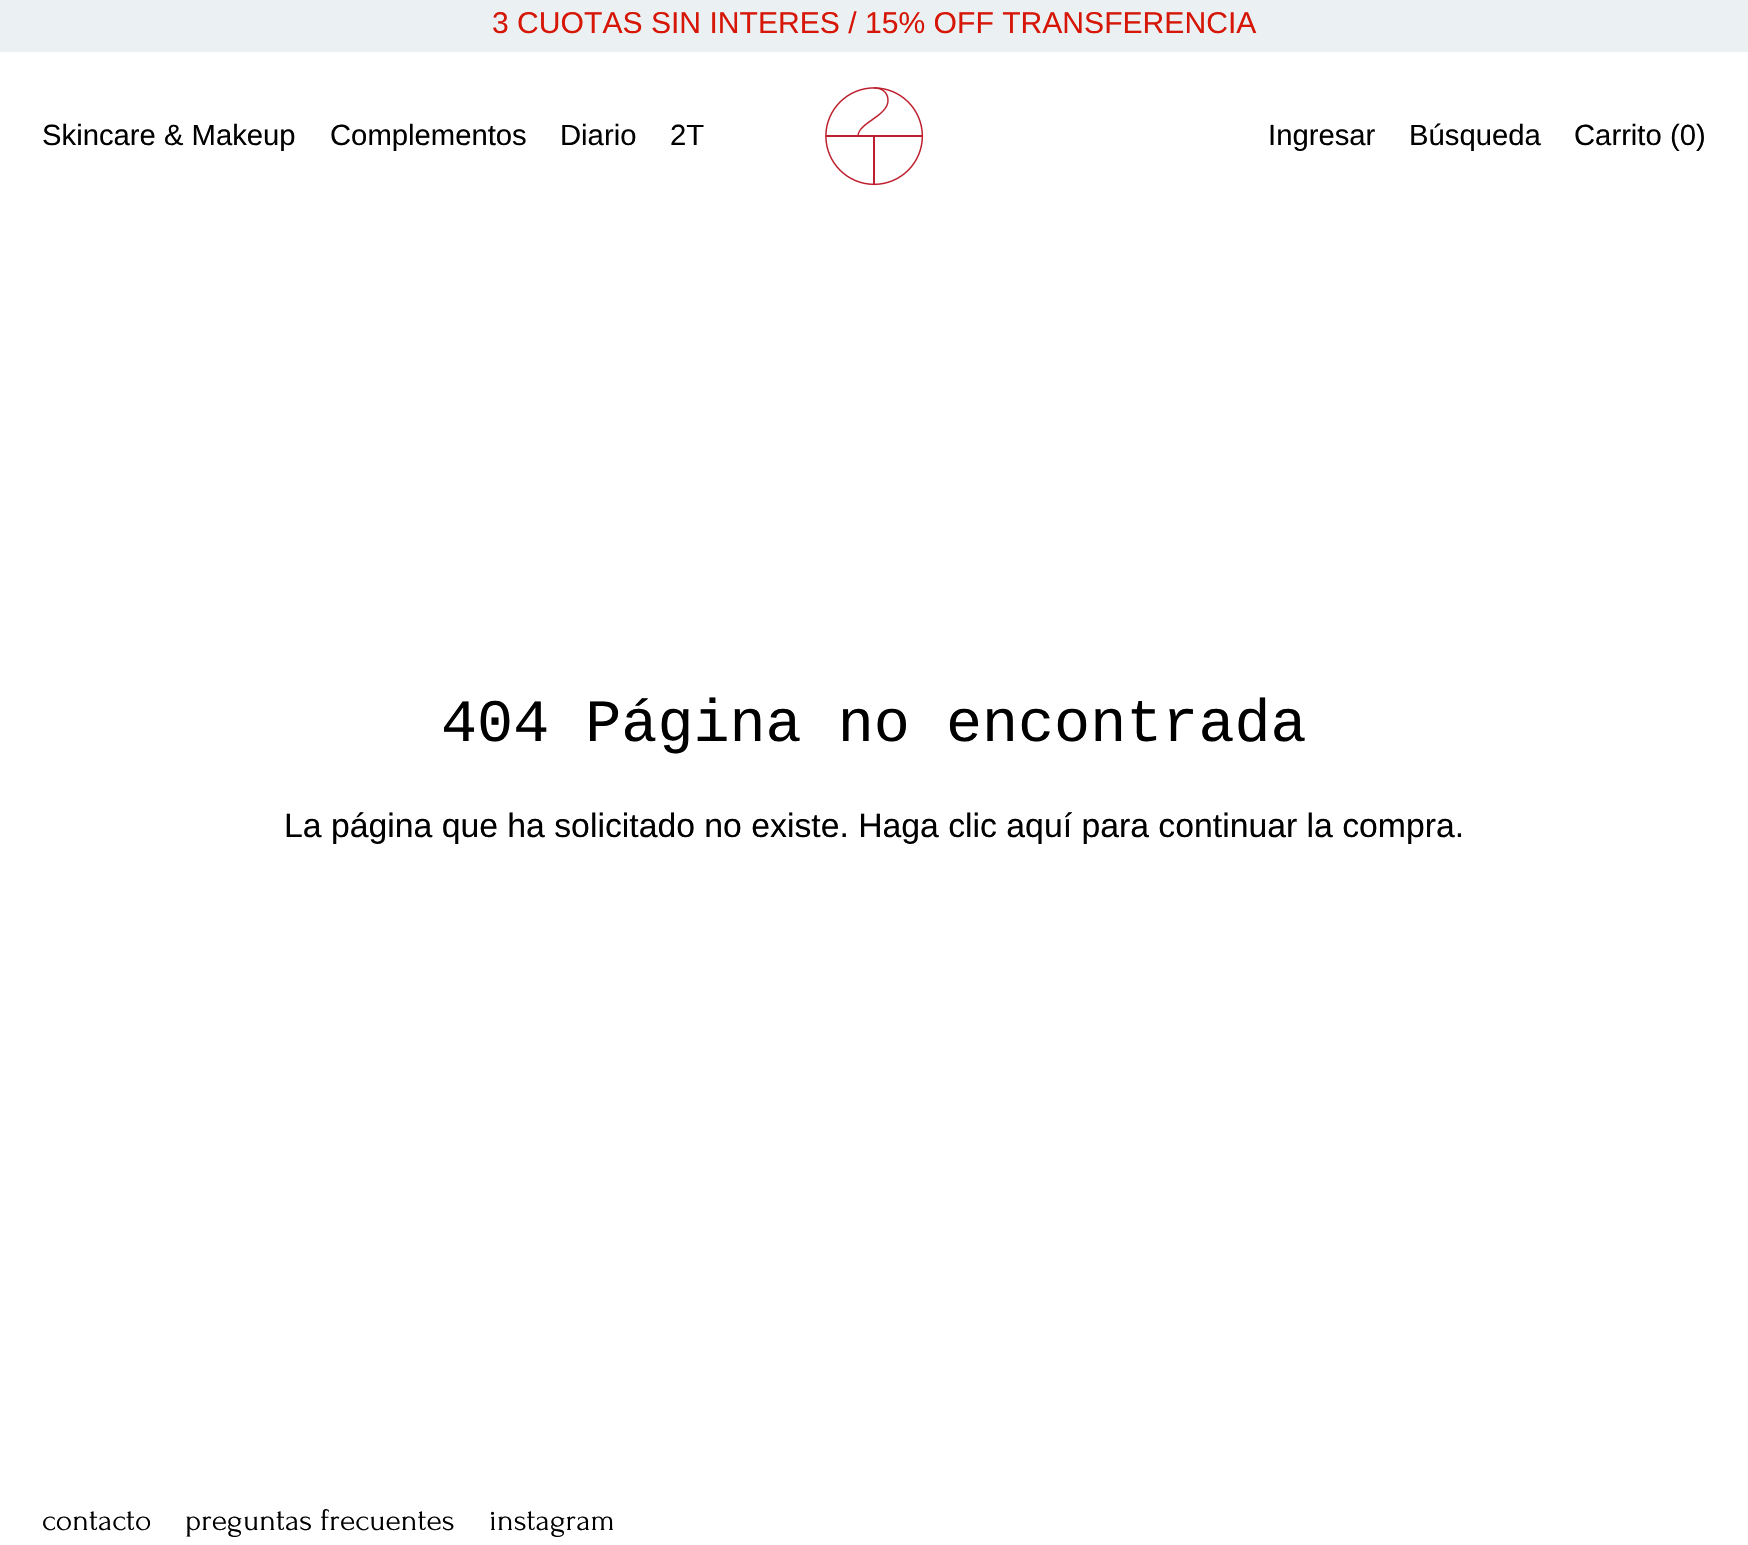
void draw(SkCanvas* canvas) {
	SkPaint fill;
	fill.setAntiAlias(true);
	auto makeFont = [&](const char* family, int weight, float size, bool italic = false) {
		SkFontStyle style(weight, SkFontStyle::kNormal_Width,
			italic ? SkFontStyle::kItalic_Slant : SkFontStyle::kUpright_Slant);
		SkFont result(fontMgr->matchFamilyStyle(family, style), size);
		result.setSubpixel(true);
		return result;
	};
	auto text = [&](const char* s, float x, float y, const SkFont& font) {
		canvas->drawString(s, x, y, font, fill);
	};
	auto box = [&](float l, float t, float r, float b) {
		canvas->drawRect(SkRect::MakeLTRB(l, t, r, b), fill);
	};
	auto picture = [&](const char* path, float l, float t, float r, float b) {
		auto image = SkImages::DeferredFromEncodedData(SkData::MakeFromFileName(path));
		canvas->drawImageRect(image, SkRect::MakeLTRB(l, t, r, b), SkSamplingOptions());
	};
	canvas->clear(0xFFFFFFFF);
	fill.setColor(0xFFEBF0F3);
	box(0, 0, 1748, 52);
	picture("image0.png", 825, 87, 924, 186);
	auto font1 = makeFont("Liberation Sans", 400, 30.1f);
	fill.setColor(0xFFD61708);
	text("3 CUOTAS SIN INTERES / 15% OFF TRANSFERENCIA", 492, 33, font1);
	auto font2 = makeFont("Liberation Sans", 400, 29.25f);
	fill.setColor(0xFF000000);
	text("Skincare & Makeup", 42, 145, font2);
	text("Complementos", 330, 145, font2);
	text("Diario", 560, 145, font2);
	text("2T", 670, 145, font2);
	text("Ingresar", 1268, 145, font2);
	text("Búsqueda", 1409, 145, font2);
	text("Carrito (0)", 1574, 145, font2);
	auto font3 = makeFont("Liberation Mono", 400, 60.1f);
	text("404 Página no encontrada", 441, 741, font3);
	auto font4 = makeFont("Liberation Sans", 400, 33.75f);
	text("La página que ha solicitado no existe. Haga clic aquí para continuar la compra.", 284, 837, font4);
	auto font5 = makeFont("Forum", 400, 31.5f);
	text("contacto", 42, 1530, font5);
	text("preguntas frecuentes", 185, 1530, font5);
	text("instagram", 489, 1530, font5);
}
